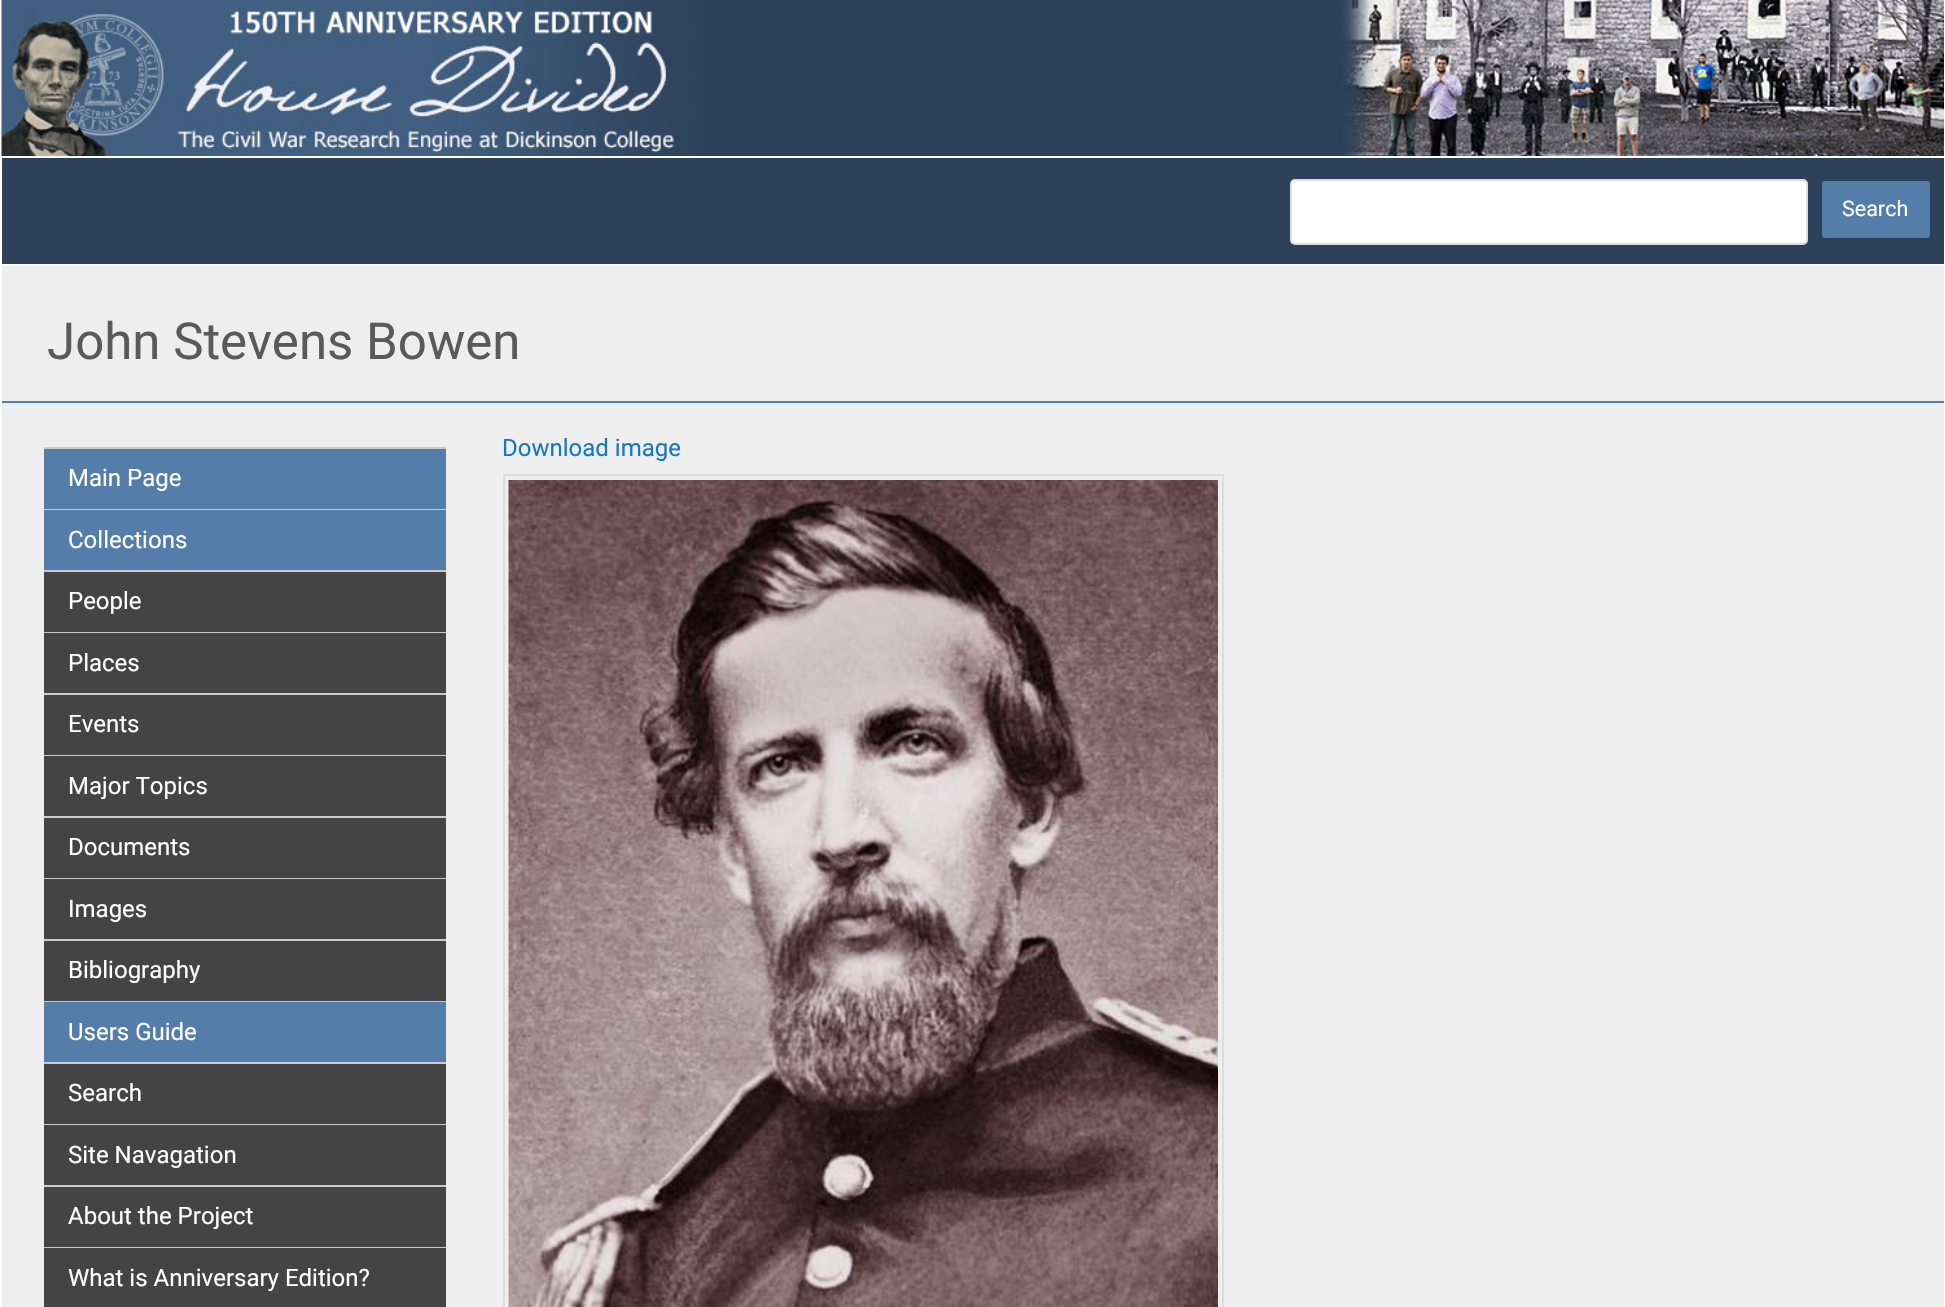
void draw(SkCanvas* canvas) {
	SkPaint fill;
	fill.setAntiAlias(true);
	auto makeFont = [&](const char* family, int weight, float size, bool italic = false) {
		SkFontStyle style(weight, SkFontStyle::kNormal_Width,
			italic ? SkFontStyle::kItalic_Slant : SkFontStyle::kUpright_Slant);
		SkFont result(fontMgr->matchFamilyStyle(family, style), size);
		result.setSubpixel(true);
		return result;
	};
	auto text = [&](const char* s, float x, float y, const SkFont& font) {
		canvas->drawString(s, x, y, font, fill);
	};
	auto box = [&](float l, float t, float r, float b) {
		canvas->drawRect(SkRect::MakeLTRB(l, t, r, b), fill);
	};
	auto picture = [&](const char* path, float l, float t, float r, float b) {
		auto image = SkImages::DeferredFromEncodedData(SkData::MakeFromFileName(path));
		canvas->drawImageRect(image, SkRect::MakeLTRB(l, t, r, b), SkSamplingOptions());
	};
	canvas->clear(0xFFFFFFFF);
	picture("image0.png", 1, 0, 1944, 156);
	fill.setColor(0xFF2D415A);
	box(2, 158, 1944, 264);
	fill.setColor(0xFFFFFFFF);
	canvas->drawRoundRect(SkRect::MakeLTRB(1291, 180, 1807, 244), 4, 4, fill);
	fill.setStyle(SkPaint::kStroke_Style);
	fill.setStrokeWidth(2);
	fill.setColor(0xFFDDDDDD);
	canvas->drawRoundRect(SkRect::MakeLTRB(1291, 180, 1807, 244), 4, 4, fill);
	fill.setStyle(SkPaint::kFill_Style);
	fill.setColor(0xFF547EA9);
	canvas->drawRoundRect(SkRect::MakeLTRB(1821, 180, 1931, 239), 4, 4, fill);
	fill.setStyle(SkPaint::kStroke_Style);
	fill.setColor(0xFF2D415A);
	canvas->drawRoundRect(SkRect::MakeLTRB(1821, 180, 1931, 239), 4, 4, fill);
	fill.setStyle(SkPaint::kFill_Style);
	fill.setColor(0xFFEEEEEE);
	box(2, 266, 1944, 401);
	fill.setColor(0xFF547EA9);
	box(2, 401, 1944, 403);
	fill.setColor(0xFFEEEEEE);
	box(2, 403, 1944, 1307);
	fill.setStyle(SkPaint::kStroke_Style);
	fill.setColor(0xFFDDDDDD);
	canvas->drawRect(SkRect::MakeLTRB(504, 475, 1223, 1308), fill);
	picture("image1.png", 508, 480, 1218, 1307);
	fill.setStyle(SkPaint::kFill_Style);
	fill.setColor(0xFFCACACA);
	box(44, 447, 446, 449);
	box(44, 509, 446, 510);
	fill.setColor(0xFF547EA9);
	box(44, 449, 446, 509);
	fill.setColor(0xFFCACACA);
	box(44, 570, 446, 572);
	fill.setColor(0xFF547EA9);
	box(44, 510, 446, 570);
	fill.setColor(0xFFCACACA);
	box(44, 632, 446, 633);
	fill.setColor(0xFF444444);
	box(44, 572, 446, 632);
	fill.setColor(0xFFCACACA);
	box(44, 693, 446, 695);
	fill.setColor(0xFF444444);
	box(44, 633, 446, 693);
	fill.setColor(0xFFCACACA);
	box(44, 755, 446, 756);
	fill.setColor(0xFF444444);
	box(44, 695, 446, 755);
	fill.setColor(0xFFCACACA);
	box(44, 816, 446, 818);
	fill.setColor(0xFF444444);
	box(44, 756, 446, 816);
	fill.setColor(0xFFCACACA);
	box(44, 878, 446, 879);
	fill.setColor(0xFF444444);
	box(44, 818, 446, 878);
	fill.setColor(0xFFCACACA);
	box(44, 939, 446, 941);
	fill.setColor(0xFF444444);
	box(44, 879, 446, 939);
	fill.setColor(0xFFCACACA);
	box(44, 1001, 446, 1002);
	fill.setColor(0xFF444444);
	box(44, 941, 446, 1001);
	fill.setColor(0xFFCACACA);
	box(44, 1062, 446, 1064);
	fill.setColor(0xFF547EA9);
	box(44, 1002, 446, 1062);
	fill.setColor(0xFFCACACA);
	box(44, 1124, 446, 1125);
	fill.setColor(0xFF444444);
	box(44, 1064, 446, 1124);
	fill.setColor(0xFFCACACA);
	box(44, 1185, 446, 1187);
	fill.setColor(0xFF444444);
	box(44, 1125, 446, 1185);
	fill.setColor(0xFFCACACA);
	box(44, 1247, 446, 1248);
	fill.setColor(0xFF444444);
	box(44, 1187, 446, 1247);
	box(44, 1248, 446, 1307);
	auto font1 = makeFont("Roboto", 400, 21.5f);
	fill.setColor(0xFFFFFFFF);
	text("Search", 1842, 216, font1);
	auto font2 = makeFont("Roboto", 400, 51);
	fill.setColor(0xFF5B5A5A);
	text("John Stevens Bowen", 47, 359, font2);
	auto font3 = makeFont("Roboto", 400, 24);
	fill.setColor(0xFF1779BA);
	text("Download image", 502, 456, font3);
	fill.setColor(0xFFFFFFFF);
	text("Main Page", 68, 486, font3);
	text("Collections", 68, 548, font3);
	text("People", 68, 609, font3);
	text("Places", 68, 671, font3);
	text("Events", 68, 732, font3);
	text("Major Topics", 68, 794, font3);
	text("Documents", 68, 855, font3);
	text("Images", 68, 917, font3);
	text("Bibliography", 68, 978, font3);
	text("Users Guide", 68, 1040, font3);
	text("Search", 68, 1101, font3);
	text("Site Navagation", 68, 1163, font3);
	text("About the Project", 68, 1224, font3);
	text("What is Anniversary Edition?", 68, 1286, font3);
}
